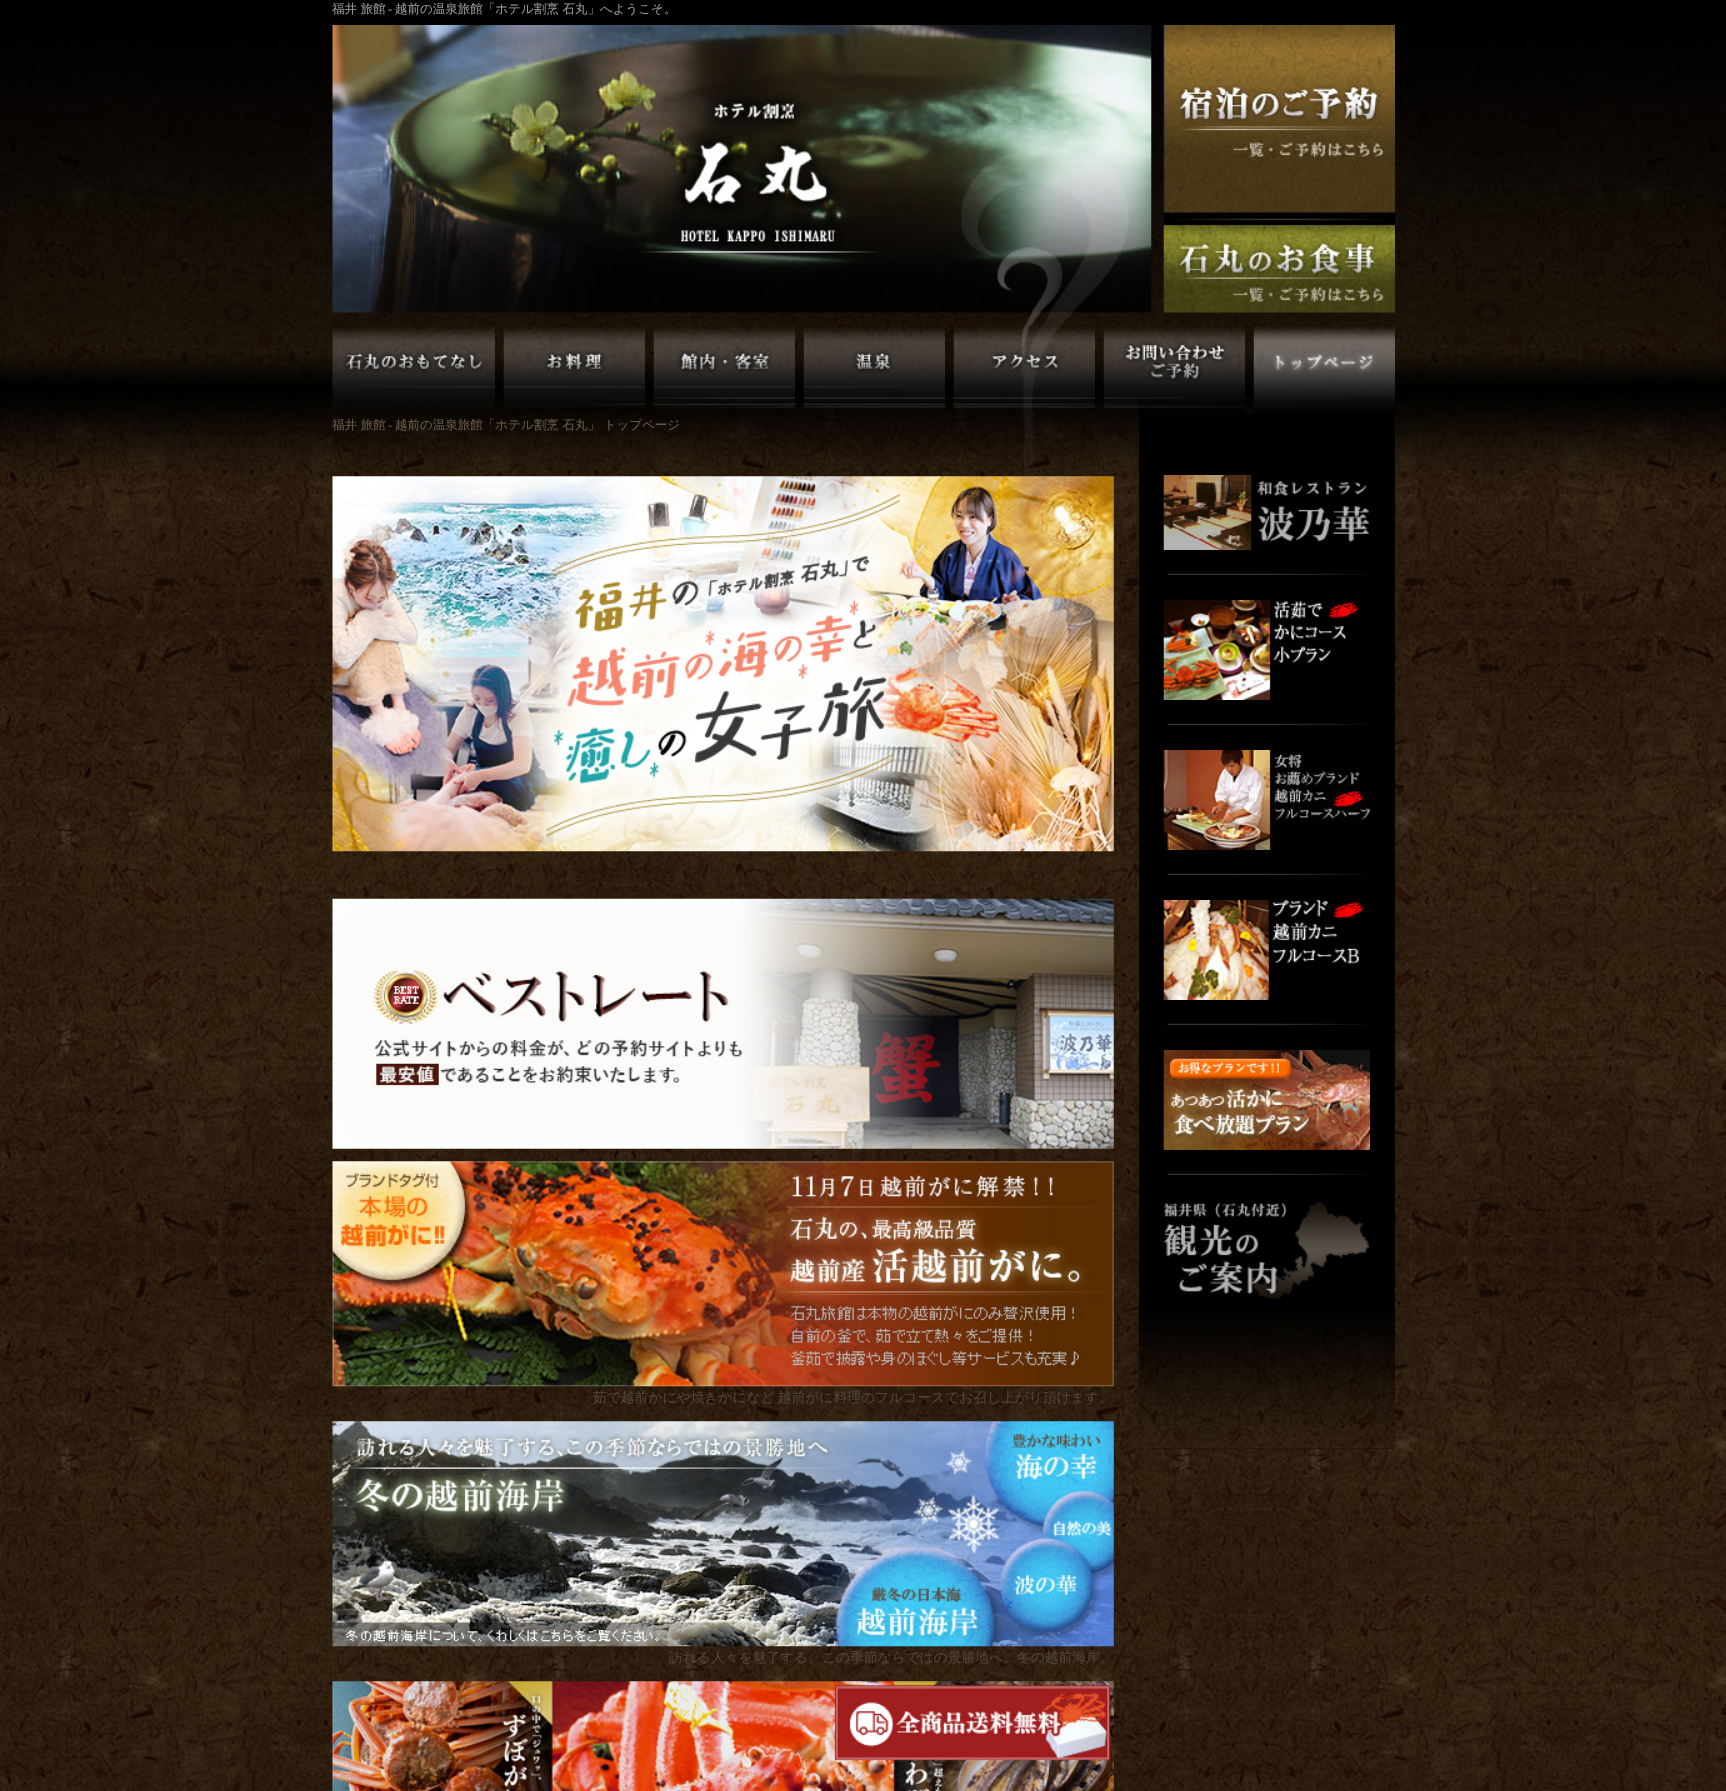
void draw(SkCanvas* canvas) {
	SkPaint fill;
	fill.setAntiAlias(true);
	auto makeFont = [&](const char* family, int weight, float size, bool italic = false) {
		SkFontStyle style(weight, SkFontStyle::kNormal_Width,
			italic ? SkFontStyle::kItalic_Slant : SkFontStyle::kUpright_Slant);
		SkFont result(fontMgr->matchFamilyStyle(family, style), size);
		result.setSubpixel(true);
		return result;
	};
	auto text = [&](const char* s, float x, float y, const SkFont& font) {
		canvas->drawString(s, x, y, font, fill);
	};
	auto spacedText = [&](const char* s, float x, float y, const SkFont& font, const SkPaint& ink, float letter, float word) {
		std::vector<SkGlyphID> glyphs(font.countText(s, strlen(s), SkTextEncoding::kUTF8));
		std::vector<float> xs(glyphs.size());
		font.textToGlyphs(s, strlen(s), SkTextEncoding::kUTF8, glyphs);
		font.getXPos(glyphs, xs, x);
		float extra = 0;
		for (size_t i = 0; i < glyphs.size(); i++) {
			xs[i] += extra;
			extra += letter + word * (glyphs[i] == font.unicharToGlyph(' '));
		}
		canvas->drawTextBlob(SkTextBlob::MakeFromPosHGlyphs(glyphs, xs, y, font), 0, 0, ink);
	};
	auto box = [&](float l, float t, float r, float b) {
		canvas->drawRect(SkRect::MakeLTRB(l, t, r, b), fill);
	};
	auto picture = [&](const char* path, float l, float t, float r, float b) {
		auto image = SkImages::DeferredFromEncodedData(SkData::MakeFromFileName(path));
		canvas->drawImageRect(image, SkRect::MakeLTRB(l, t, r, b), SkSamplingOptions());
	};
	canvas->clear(0xFFFFFFFF);
	picture("image0.png", 0, 625, 1726, 1791);
	picture("image1.png", 0, 0, 1726, 625);
	picture("image2.png", 332, 95, 1140, 625);
	picture("image3.png", 332, 25, 1152, 313);
	picture("image4.png", 1163, 25, 1395, 313);
	picture("image5.png", 332, 327, 495, 410);
	picture("image6.png", 503, 327, 645, 408);
	picture("image7.png", 653, 326, 795, 411);
	picture("image8.png", 803, 325, 945, 411);
	picture("image9.png", 953, 325, 1095, 412);
	picture("image10.png", 1103, 325, 1245, 413);
	picture("image11.png", 1253, 325, 1395, 413);
	picture("image12.png", 332, 476, 1114, 852);
	picture("image13.png", 332, 898, 1114, 1149);
	picture("image14.png", 332, 1161, 1114, 1387);
	picture("image15.png", 332, 1421, 1114, 1647);
	picture("image16.png", 332, 1681, 1114, 1791);
	fill.setColor(0xFF000000);
	box(1139, 413, 1395, 1449);
	picture("image17.png", 1138, 1299, 1395, 1449);
	picture("image18.png", 1167, 573, 1365, 575);
	picture("image19.png", 1163, 475, 1369, 550);
	picture("image18.png", 1167, 723, 1365, 725);
	picture("image20.png", 1163, 600, 1364, 700);
	picture("image18.png", 1167, 873, 1365, 875);
	picture("image21.png", 1163, 750, 1370, 850);
	picture("image18.png", 1167, 1023, 1365, 1025);
	picture("image22.png", 1163, 900, 1364, 1000);
	picture("image18.png", 1167, 1173, 1365, 1175);
	picture("image23.png", 1163, 1050, 1370, 1150);
	picture("image24.png", 1163, 1201, 1369, 1299);
	auto font1 = makeFont("WenQuanYi Zen Hei", 500, 12.5f);
	fill.setColor(0xFF999999);
	text("福井 旅館", 332, 13, font1);
	auto font2 = makeFont("Liberation Serif", 400, 12.5f);
	text("-", 388, 13, font2);
	text("越前の温泉旅館「ホテル割烹 石丸」へようこそ。", 395, 13, font1);
	fill.setColor(0xFF6A5945);
	text("福井 旅館", 332, 429, font1);
	text("-", 388, 429, font2);
	text("越前の温泉旅館「ホテル割烹 石丸」 トップページ", 395, 429, font1);
	auto font3 = makeFont("WenQuanYi Zen Hei", 500, 13.75f);
	fill.setColor(0xFF50443A);
	spacedText("茹で越前かにや焼きかになど 越前がに料理のフルコースでお召し上がり頂けます。", 593, 1402, font3, fill, 0, -1);
	text("訪れる人々を魅了する、この季節ならではの景勝地へ。冬の越前海岸。", 669, 1662, font3);
}
